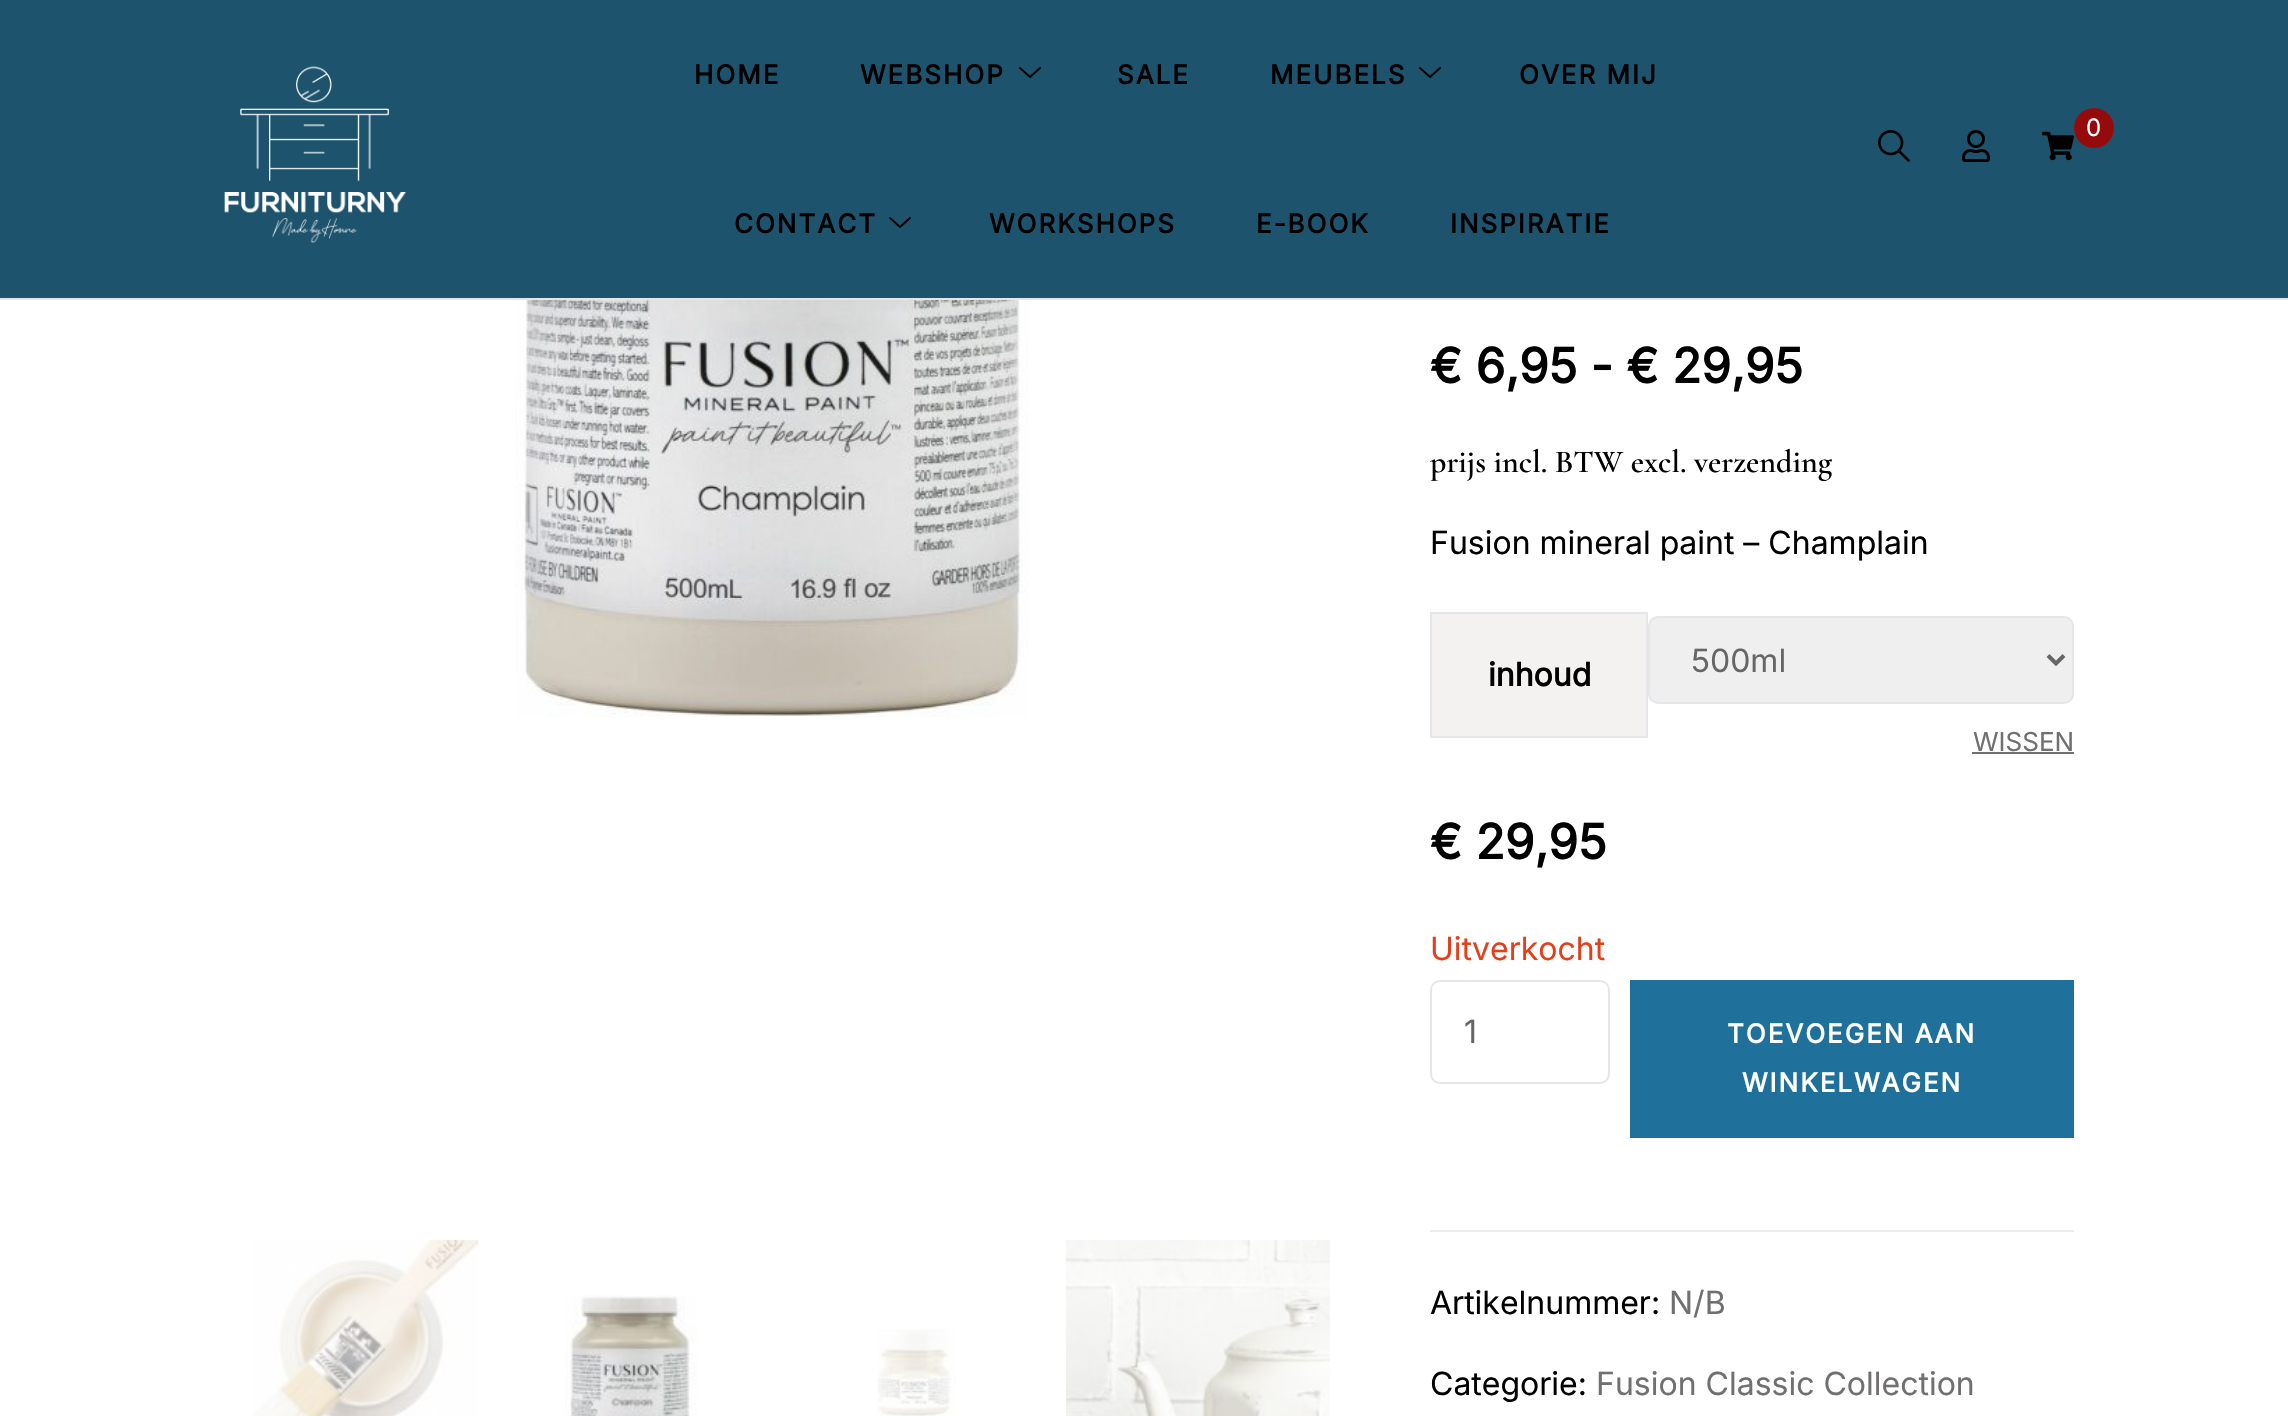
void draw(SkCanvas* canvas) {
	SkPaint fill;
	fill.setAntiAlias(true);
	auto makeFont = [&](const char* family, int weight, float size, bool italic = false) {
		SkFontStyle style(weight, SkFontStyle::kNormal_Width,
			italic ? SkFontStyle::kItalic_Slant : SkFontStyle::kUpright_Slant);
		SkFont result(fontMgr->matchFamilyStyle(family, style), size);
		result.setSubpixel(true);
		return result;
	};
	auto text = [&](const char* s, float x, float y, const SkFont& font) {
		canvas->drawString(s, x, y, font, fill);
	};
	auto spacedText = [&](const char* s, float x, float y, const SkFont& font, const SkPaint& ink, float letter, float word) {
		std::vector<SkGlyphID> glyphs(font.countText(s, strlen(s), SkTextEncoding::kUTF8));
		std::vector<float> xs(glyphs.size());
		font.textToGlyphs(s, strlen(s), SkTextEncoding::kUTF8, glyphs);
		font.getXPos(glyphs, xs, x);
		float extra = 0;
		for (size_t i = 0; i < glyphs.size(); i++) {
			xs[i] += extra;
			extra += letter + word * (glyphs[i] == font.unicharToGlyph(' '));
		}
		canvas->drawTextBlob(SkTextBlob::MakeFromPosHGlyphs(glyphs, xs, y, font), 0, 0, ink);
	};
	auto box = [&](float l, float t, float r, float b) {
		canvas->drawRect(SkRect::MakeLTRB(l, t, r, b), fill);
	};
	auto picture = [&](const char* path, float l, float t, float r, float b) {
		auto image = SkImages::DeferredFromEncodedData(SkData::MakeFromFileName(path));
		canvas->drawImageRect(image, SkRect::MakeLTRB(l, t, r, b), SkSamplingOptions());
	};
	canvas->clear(0xFFFFFFFF);
	fill.setColor(0xFF1E536D);
	box(0, 0, 2288, 298);
	fill.setColor(0xFFE4E6EA);
	box(0, 298, 2288, 300);
	picture("image0.png", 224, 66, 407, 244);
	picture("image1.png", 1019, 67, 1041, 78);
	picture("image1.png", 1419, 67, 1441, 78);
	picture("image1.png", 889, 217, 911, 228);
	fill.setColor(0xFF950B0B);
	canvas->drawCircle(2094, 128, 20, fill);
	picture("image2.png", 2042, 131, 2074, 161);
	picture("image3.png", 1878, 130, 1910, 162);
	picture("image4.png", 1962, 130, 1990, 162);
	picture("image5.png", 515, 300, 1029, 717);
	picture("image6.png", 252, 1240, 478, 1416);
	picture("image7.png", 565, 1295, 697, 1416);
	picture("image8.png", 877, 1329, 956, 1416);
	picture("image9.png", 1066, 1240, 1330, 1416);
	fill.setColor(0xFFF4F2F1);
	box(1432, 614, 1646, 736);
	fill.setColor(0xFFE4E6EA);
	box(1430, 612, 1648, 614);
	box(1646, 612, 1648, 738);
	box(1430, 736, 1648, 738);
	box(1430, 612, 1432, 738);
	fill.setColor(0xFFEFEFEF);
	canvas->drawRoundRect(SkRect::MakeLTRB(1649, 617, 2073, 703), 9, 9, fill);
	fill.setStyle(SkPaint::kStroke_Style);
	fill.setStrokeWidth(2);
	fill.setColor(0xFFE4E6EA);
	canvas->drawRoundRect(SkRect::MakeLTRB(1649, 617, 2073, 703), 9, 9, fill);
	fill.setStrokeWidth(4);
	fill.setColor(0xFF666666);
	canvas->drawPath(SkPathBuilder().moveTo(2048, 655.5f).lineTo(2056, 663.5f).lineTo(2064, 655.5f).detach(), fill);
	fill.setStyle(SkPaint::kFill_Style);
	fill.setColor(0xFF716F6F);
	box(1972, 752, 2074, 754);
	fill.setStyle(SkPaint::kStroke_Style);
	fill.setStrokeWidth(2);
	fill.setColor(0xFFE4E6EA);
	canvas->drawRoundRect(SkRect::MakeLTRB(1431, 981, 1609, 1083), 9, 9, fill);
	fill.setStyle(SkPaint::kFill_Style);
	fill.setColor(0xFF1F709A);
	box(1630, 980, 2074, 1138);
	fill.setColor(0xFFEBEBEB);
	box(1430, 1230, 2074, 1232);
	auto font1 = makeFont("Inter", 700, 26);
	fill.setColor(0xFF000000);
	spacedText("HOME", 694, 84, font1, fill, 2, 0);
	spacedText("WEBSHOP", 860, 84, font1, fill, 2, 0);
	spacedText("SALE", 1117, 84, font1, fill, 2, 0);
	spacedText("MEUBELS", 1270, 84, font1, fill, 2, 0);
	spacedText("OVER MIJ", 1519, 84, font1, fill, 2, 0);
	spacedText("CONTACT", 734, 233, font1, fill, 2, 0);
	spacedText("WORKSHOPS", 989, 233, font1, fill, 2, 0);
	spacedText("E-BOOK", 1256, 233, font1, fill, 2, 0);
	spacedText("INSPIRATIE", 1450, 233, font1, fill, 2, 0);
	auto font2 = makeFont("Inter", 400, 24);
	fill.setColor(0xFFFFFFFF);
	text("0", 2086, 136, font2);
	auto font3 = makeFont("Inter", 700, 48);
	fill.setColor(0xFF000000);
	text("€ 6,95 - € 29,95", 1430, 383, font3);
	auto font4 = makeFont("Cormorant Garamond", 600, 32);
	text("prijs incl. BTW excl. verzending", 1430, 472, font4);
	auto font5 = makeFont("Inter", 400, 32);
	text("Fusion mineral paint – Champlain", 1430, 554, font5);
	auto font6 = makeFont("Inter", 700, 32);
	text("inhoud", 1488, 686, font6);
	fill.setColor(0xFF666666);
	text("500ml", 1691, 672, font5);
	auto font7 = makeFont("Inter", 400, 26);
	fill.setColor(0xFF716F6F);
	text("WISSEN", 1973, 751, font7);
	fill.setColor(0xFF000000);
	text("€ 29,95", 1430, 859, font3);
	fill.setColor(0xFFE2401C);
	text("Uitverkocht", 1430, 960, font5);
	fill.setColor(0xFF666666);
	text("1", 1464, 1043, font5);
	fill.setColor(0xFFFFFFFF);
	spacedText("TOEVOEGEN AAN", 1727, 1043, font1, fill, 2, 0);
	spacedText("WINKELWAGEN", 1742, 1092, font1, fill, 2, 0);
	fill.setColor(0xFF000000);
	text("Artikelnummer:", 1430, 1314, font5);
	fill.setColor(0xFF716F6F);
	text("N/B", 1669, 1314, font5);
	fill.setColor(0xFF000000);
	text("Categorie:", 1430, 1395, font5);
	fill.setColor(0xFF716F6F);
	text("Fusion Classic Collection", 1596, 1395, font5);
}
